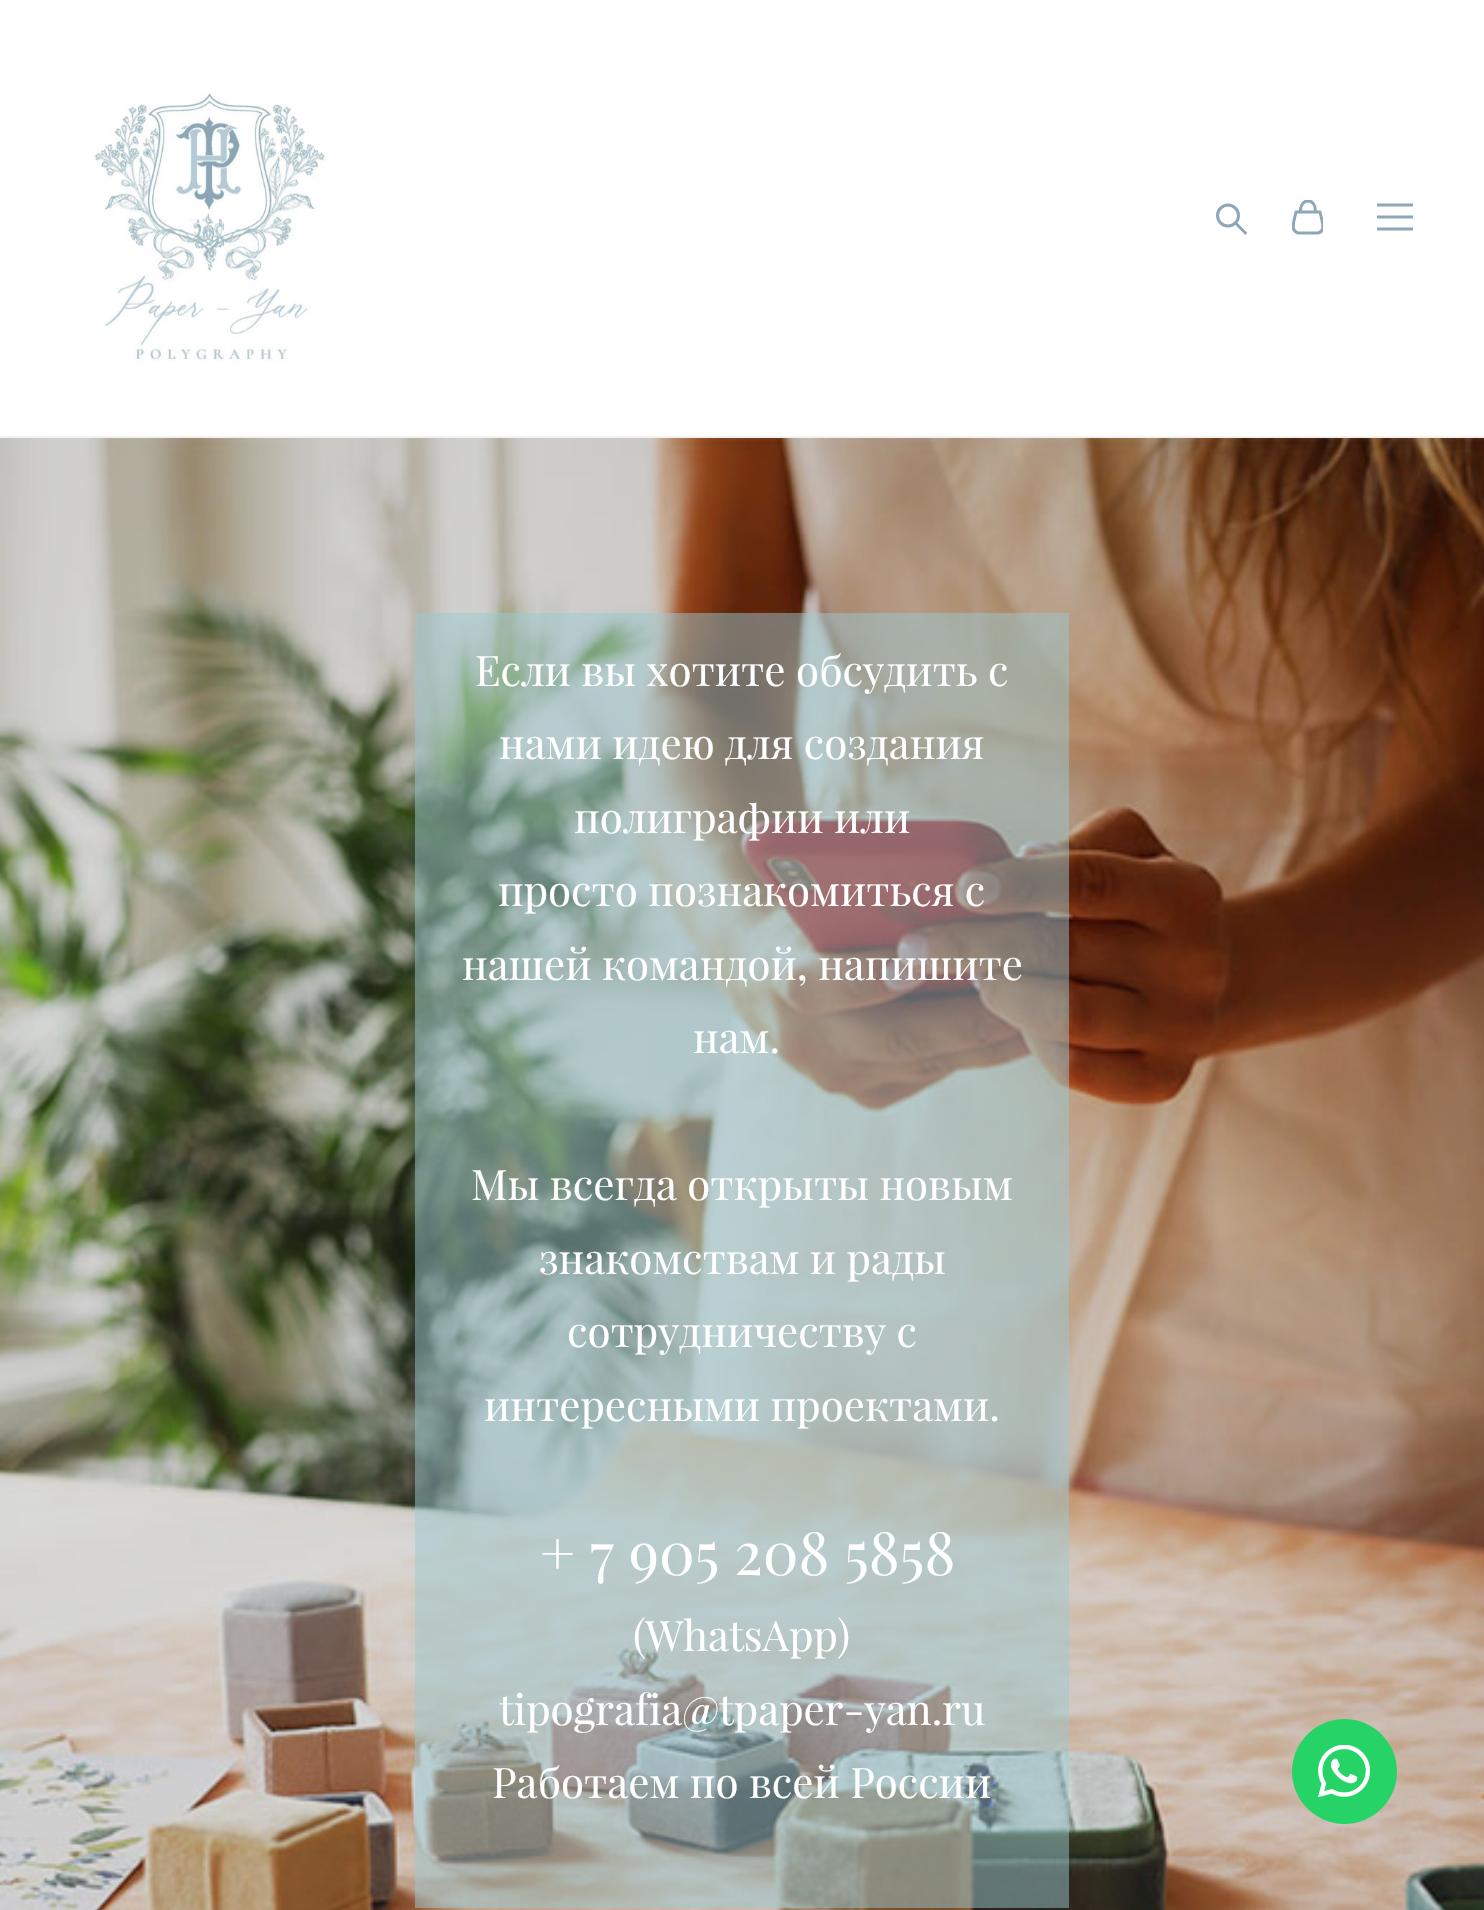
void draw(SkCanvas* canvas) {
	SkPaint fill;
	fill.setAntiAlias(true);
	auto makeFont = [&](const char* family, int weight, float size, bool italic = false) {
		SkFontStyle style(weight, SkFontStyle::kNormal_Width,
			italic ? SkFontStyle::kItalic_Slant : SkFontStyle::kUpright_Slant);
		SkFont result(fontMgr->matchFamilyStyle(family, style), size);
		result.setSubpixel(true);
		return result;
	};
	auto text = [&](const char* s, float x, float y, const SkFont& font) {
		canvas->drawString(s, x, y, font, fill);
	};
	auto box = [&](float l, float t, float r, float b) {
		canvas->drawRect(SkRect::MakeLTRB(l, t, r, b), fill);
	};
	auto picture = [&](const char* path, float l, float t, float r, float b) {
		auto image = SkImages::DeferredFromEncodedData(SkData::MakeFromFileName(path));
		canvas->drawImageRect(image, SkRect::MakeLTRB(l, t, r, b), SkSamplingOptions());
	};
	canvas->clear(0xFFFFFFFF);
	picture("image0.png", 93, 93, 327, 362);
	fill.setStyle(SkPaint::kStroke_Style);
	fill.setStrokeWidth(3);
	fill.setColor(0xFF8CA7B8);
	canvas->drawCircle(1228, 215.5f, 10.5f, fill);
	fill.setStrokeCap(SkPaint::kRound_Cap);
	fill.setStrokeJoin(SkPaint::kRound_Join);
	canvas->drawPath(SkPathBuilder().moveTo(1235.5f, 223).lineTo(1245.5f, 233).detach(), fill);
	canvas->save();
	canvas->clipRect(SkRect::MakeLTRB(1292, 200, 1323, 235));
	canvas->drawPath(SkPathBuilder().moveTo(1320, 212).lineTo(1296, 212).lineTo(1294, 220.5f).cubicTo(1293, 225.5f, 1292, 231.5f, 1298, 233).lineTo(1318, 233).cubicTo(1324.5f, 231.5f, 1323, 225.5f, 1322, 220.5f).close().detach(), fill);
	fill.setStrokeCap(SkPaint::kButt_Cap);
	fill.setStrokeJoin(SkPaint::kMiter_Join);
	canvas->drawPath(SkPathBuilder().moveTo(1300.5f, 211).cubicTo(1300.5f, 197.5f, 1315.5f, 197.5f, 1315.5f, 211).detach(), fill);
	canvas->restore();
	canvas->drawPath(SkPathBuilder().moveTo(1377, 205).lineTo(1413, 205).moveTo(1377, 217).lineTo(1413, 217).moveTo(1377, 229).lineTo(1413, 229).detach(), fill);
	fill.setStyle(SkPaint::kFill_Style);
	fill.setColor(0xFFF2F2F2);
	box(0, 436, 1484, 438);
	picture("image1.png", 0, 438, 1484, 1910);
	fill.setColor(0x7D9BC8D1);
	box(415, 613, 1069, 1908);
	fill.setColor(0xFF25D366);
	canvas->drawCircle(1344.5f, 1771.5f, 52.5f, fill);
	picture("image2.png", 1318, 1745, 1370, 1797);
	auto font1 = makeFont("playfair display", 400, 42);
	fill.setColor(0xFFFFFFFF);
	text("Если вы хотите обсудить с", 475, 686, font1);
	text("нами идею для создания", 499, 759, font1);
	text("полиграфии или", 574, 833, font1);
	text("просто познакомиться с", 498, 906, font1);
	text("нашей командой, напишите", 462, 980, font1);
	text("нам.", 693, 1053, font1);
	text("Мы всегда открыты новым", 471, 1200, font1);
	text("знакомствам и рады", 539, 1274, font1);
	text("сотрудничеству с", 567, 1347, font1);
	text("интересными проектами.", 484, 1421, font1);
	auto font2 = makeFont("playfair display", 400, 59.5f);
	text("+ 7 905 208 5858", 540, 1575, font2);
	text("(WhatsApp)", 633, 1651, font1);
	text("tipografia@tpaper-yan.ru", 499, 1725, font1);
	text("Работаем по всей России", 492, 1798, font1);
}
